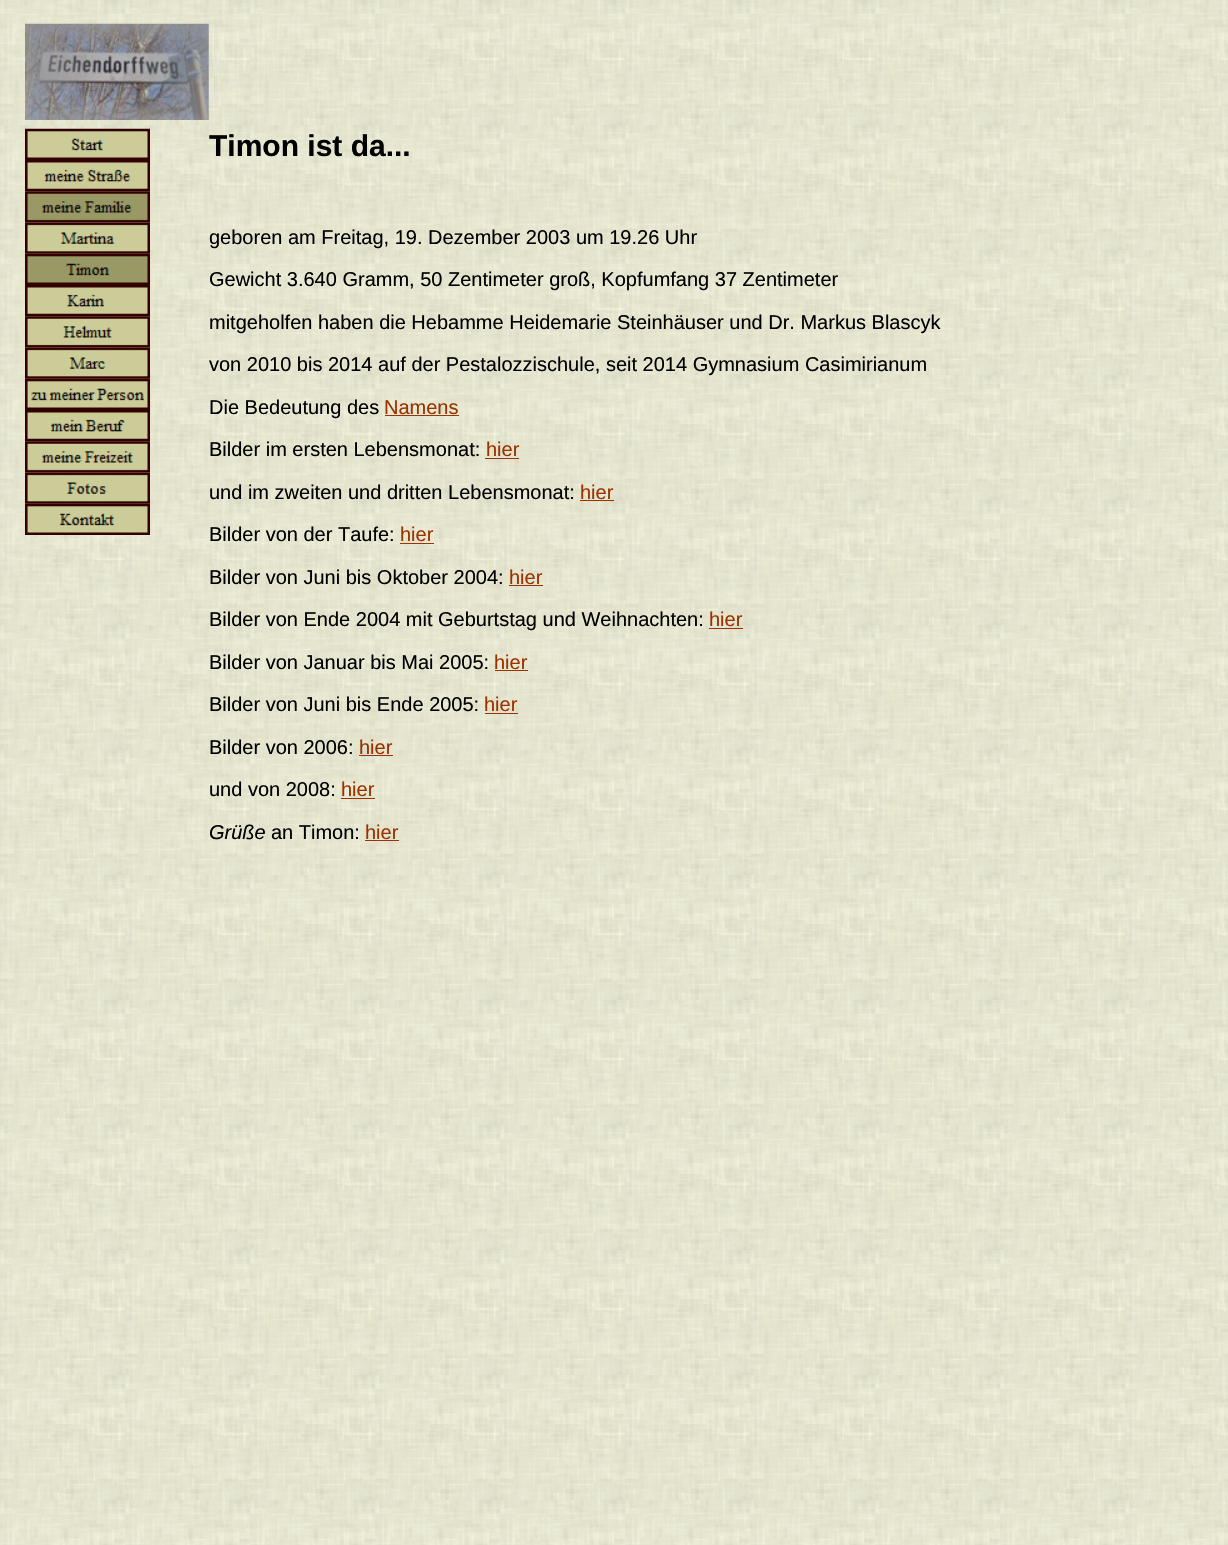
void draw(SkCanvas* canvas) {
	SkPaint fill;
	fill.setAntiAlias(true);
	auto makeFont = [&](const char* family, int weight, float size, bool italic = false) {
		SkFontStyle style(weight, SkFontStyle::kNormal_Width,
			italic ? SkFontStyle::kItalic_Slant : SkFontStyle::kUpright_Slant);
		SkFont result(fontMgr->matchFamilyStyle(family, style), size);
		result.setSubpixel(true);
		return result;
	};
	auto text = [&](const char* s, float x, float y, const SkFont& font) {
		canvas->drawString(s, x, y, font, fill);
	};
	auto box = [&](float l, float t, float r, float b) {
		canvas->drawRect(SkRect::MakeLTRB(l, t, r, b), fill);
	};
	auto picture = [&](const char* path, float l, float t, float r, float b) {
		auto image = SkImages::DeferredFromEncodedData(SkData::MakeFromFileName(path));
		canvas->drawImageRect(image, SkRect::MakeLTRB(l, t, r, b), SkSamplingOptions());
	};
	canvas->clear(0xFFFFFFFF);
	picture("image0.png", 0, 0, 1228, 1545);
	picture("image1.png", 25, 23, 209, 120);
	picture("image2.png", 25, 128, 150, 160);
	picture("image3.png", 25, 160, 150, 192);
	picture("image4.png", 25, 191, 150, 223);
	picture("image5.png", 25, 222, 150, 254);
	picture("image6.png", 25, 253, 150, 285);
	picture("image7.png", 25, 285, 150, 317);
	picture("image8.png", 25, 316, 150, 348);
	picture("image9.png", 25, 347, 150, 379);
	picture("image10.png", 25, 378, 150, 410);
	picture("image11.png", 25, 410, 150, 442);
	picture("image12.png", 25, 441, 150, 473);
	picture("image13.png", 25, 472, 150, 504);
	picture("image14.png", 25, 503, 150, 535);
	fill.setColor(0xFF993300);
	box(385, 415, 459, 416);
	box(485, 458, 519, 459);
	box(580, 500, 614, 501);
	box(400, 543, 434, 544);
	box(509, 585, 543, 586);
	box(709, 628, 743, 629);
	box(495, 670, 528, 671);
	box(485, 713, 518, 714);
	box(359, 755, 393, 756);
	box(341, 798, 375, 799);
	box(365, 840, 399, 841);
	auto font1 = makeFont("Liberation Sans", 700, 30);
	fill.setColor(0xFF000000);
	text("Timon ist da...", 209, 156, font1);
	auto font2 = makeFont("Liberation Sans", 400, 20);
	text("geboren am Freitag, 19. Dezember 2003 um 19.26 Uhr", 209, 244, font2);
	text("Gewicht 3.640 Gramm, 50 Zentimeter groß, Kopfumfang 37 Zentimeter", 209, 286, font2);
	text("mitgeholfen haben die Hebamme Heidemarie Steinhäuser und Dr. Markus Blascyk", 209, 329, font2);
	text("von 2010 bis 2014 auf der Pestalozzischule, seit 2014 Gymnasium Casimirianum", 209, 371, font2);
	text("Die Bedeutung des", 209, 414, font2);
	fill.setColor(0xFF993300);
	text("Namens", 384, 414, font2);
	fill.setColor(0xFF000000);
	text("Bilder im ersten Lebensmonat:", 209, 456, font2);
	fill.setColor(0xFF993300);
	text("hier", 486, 456, font2);
	fill.setColor(0xFF000000);
	text("und im zweiten und dritten Lebensmonat:", 209, 499, font2);
	fill.setColor(0xFF993300);
	text("hier", 580, 499, font2);
	fill.setColor(0xFF000000);
	text("Bilder von der Taufe:", 209, 541, font2);
	fill.setColor(0xFF993300);
	text("hier", 400, 541, font2);
	fill.setColor(0xFF000000);
	text("Bilder von Juni bis Oktober 2004:", 209, 584, font2);
	fill.setColor(0xFF993300);
	text("hier", 509, 584, font2);
	fill.setColor(0xFF000000);
	text("Bilder von Ende 2004 mit Geburtstag und Weihnachten:", 209, 626, font2);
	fill.setColor(0xFF993300);
	text("hier", 709, 626, font2);
	fill.setColor(0xFF000000);
	text("Bilder von Januar bis Mai 2005:", 209, 669, font2);
	fill.setColor(0xFF993300);
	text("hier", 494, 669, font2);
	fill.setColor(0xFF000000);
	text("Bilder von Juni bis Ende 2005:", 209, 711, font2);
	fill.setColor(0xFF993300);
	text("hier", 484, 711, font2);
	fill.setColor(0xFF000000);
	text("Bilder von 2006:", 209, 754, font2);
	fill.setColor(0xFF993300);
	text("hier", 359, 754, font2);
	fill.setColor(0xFF000000);
	text("und von 2008:", 209, 796, font2);
	fill.setColor(0xFF993300);
	text("hier", 341, 796, font2);
	auto font3 = makeFont("Liberation Sans", 400, 20, true);
	fill.setColor(0xFF000000);
	text("Grüße", 209, 839, font3);
	text("an Timon:", 271, 839, font2);
	fill.setColor(0xFF993300);
	text("hier", 365, 839, font2);
}
